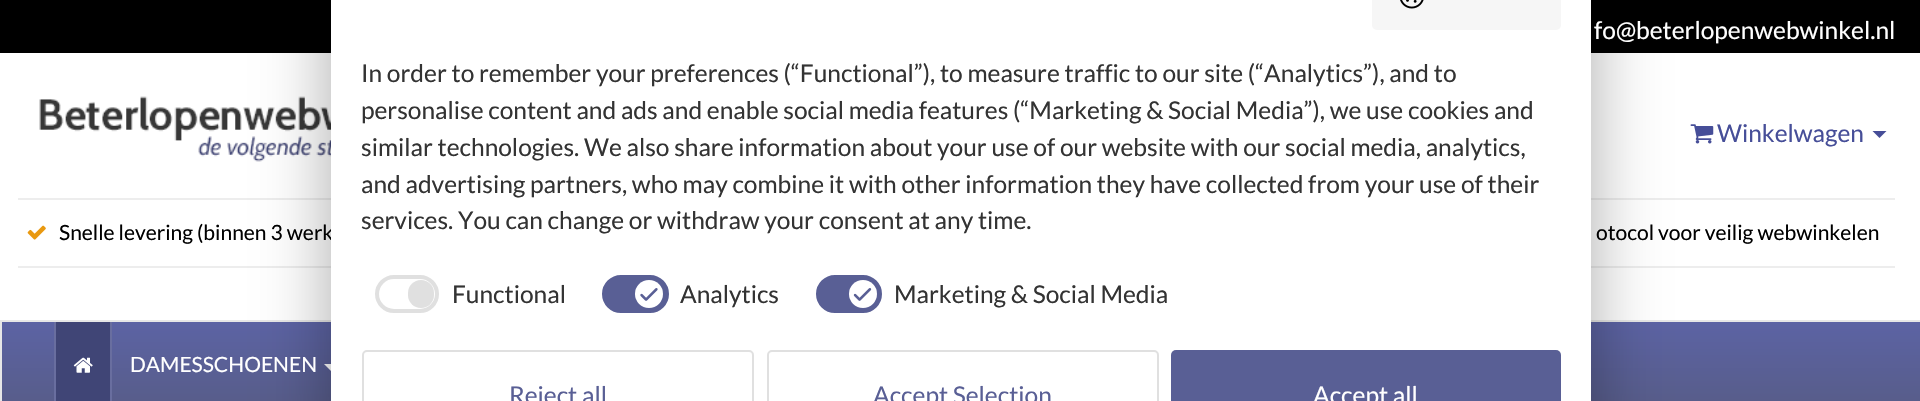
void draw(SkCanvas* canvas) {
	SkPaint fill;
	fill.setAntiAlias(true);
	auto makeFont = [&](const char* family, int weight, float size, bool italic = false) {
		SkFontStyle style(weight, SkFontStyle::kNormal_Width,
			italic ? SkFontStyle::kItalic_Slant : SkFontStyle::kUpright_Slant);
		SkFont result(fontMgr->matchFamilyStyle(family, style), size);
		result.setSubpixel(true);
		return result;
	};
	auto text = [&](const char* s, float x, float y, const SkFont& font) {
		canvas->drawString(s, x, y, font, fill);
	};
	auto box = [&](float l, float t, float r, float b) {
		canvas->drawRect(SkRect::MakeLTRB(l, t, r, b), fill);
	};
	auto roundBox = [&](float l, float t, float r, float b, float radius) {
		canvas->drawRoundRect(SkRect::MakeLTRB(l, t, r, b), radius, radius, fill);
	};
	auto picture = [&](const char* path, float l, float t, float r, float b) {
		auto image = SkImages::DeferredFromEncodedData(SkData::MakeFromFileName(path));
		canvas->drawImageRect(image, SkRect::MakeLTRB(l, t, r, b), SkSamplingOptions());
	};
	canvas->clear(0xFFFFFFFF);
	fill.setColor(0xFF000000);
	box(0, 0, 1920, 53);
	picture("image3.png", 39, 96, 331, 162);
	picture("image4.png", 1690, 124, 1714, 144);
	fill.setColor(0xFFEDEDED);
	box(18, 198, 1895, 200);
	box(18, 266, 1895, 268);
	{
		const SkColor colors[] = {0xFF5C63A4, 0xFF575C87};
		const float stops[] = {0, 1};
		const SkPoint ends[] = {{961, 322}, {961, 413}};
		fill.setShader(SkGradientShader::MakeLinear(ends, colors, stops, 2, SkTileMode::kClamp));
		fill.setAlpha(255);
	}
	box(2, 322, 1920, 401);
	fill.setStyle(SkPaint::kStroke_Style);
	fill.setStrokeWidth(2);
	fill.setShader(nullptr);
	fill.setColor(0xFFE7E7E7);
	canvas->drawRect(SkRect::MakeLTRB(1, 321, 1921, 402), fill);
	fill.setStyle(SkPaint::kFill_Style);
	fill.setColor(0xFFFFFFFF);
	canvas->drawPath(SkPathBuilder().moveTo(324, 364).lineTo(338, 364).lineTo(331, 371).close().detach(), fill);
	fill.setColor(0x54000000);
	fill.setMaskFilter(SkMaskFilter::MakeBlur(kNormal_SkBlurStyle, 35));
	canvas->drawRoundRect(SkRect::MakeLTRB(331, -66, 1591, 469), 9, 9, fill);
	fill.setMaskFilter(nullptr);
	fill.setColor(0xFF464E98);
	canvas->drawPath(SkPathBuilder().moveTo(1872.5f, 131).lineTo(1886.5f, 131).lineTo(1879.5f, 138).close().detach(), fill);
	picture("image5.png", 27, 225, 46, 240);
	fill.setColor(0xFF696E9F);
	box(110, 322, 112, 401);
	box(54, 322, 56, 401);
	fill.setColor(0xFF404576);
	box(56, 322, 110, 401);
	picture("image6.png", 73, 357, 93, 373);
	auto font1 = makeFont("Lato", 400, 24.5f);
	fill.setColor(0xFFFFFFFF);
	text("fo@beterlopenwebwinkel.nl", 1594, 39, font1);
	fill.setColor(0xFF464E98);
	text("Winkelwagen", 1717, 142, font1);
	auto font2 = makeFont("Lato", 400, 21);
	fill.setColor(0xFF000000);
	text("Snelle levering (binnen 3 werk", 59, 240, font2);
	fill.setColor(0xFFFFFFFF);
	box(331, 0, 1591, 401);
	fill.setColor(0xFF595F95);
	canvas->drawRoundRect(SkRect::MakeLTRB(818, 277, 880, 311), 17, 17, fill);
	fill.setStyle(SkPaint::kStroke_Style);
	fill.setStrokeWidth(4);
	canvas->drawRoundRect(SkRect::MakeLTRB(818, 277, 880, 311), 17, 17, fill);
	fill.setStyle(SkPaint::kFill_Style);
	fill.setColor(0xFFFFFFFF);
	canvas->drawCircle(863, 294, 14, fill);
	picture("image2.png", 853, 288, 872, 301);
	fill.setColor(0xFF595F95);
	canvas->drawRoundRect(SkRect::MakeLTRB(604, 277, 667, 311), 17, 17, fill);
	fill.setStyle(SkPaint::kStroke_Style);
	canvas->drawRoundRect(SkRect::MakeLTRB(604, 277, 667, 311), 17, 17, fill);
	fill.setStyle(SkPaint::kFill_Style);
	fill.setColor(0xFFFFFFFF);
	canvas->drawCircle(649, 294, 14, fill);
	picture("image1.png", 640, 288, 658, 301);
	fill.setColor(0xFF333333);
	text("Marketing & Social Media", 894, 303, font1);
	text("Analytics", 680, 303, font1);
	fill.setStyle(SkPaint::kStroke_Style);
	fill.setColor(0xFFE0E0E0);
	canvas->drawRoundRect(SkRect::MakeLTRB(377, 277, 437, 311), 17, 17, fill);
	fill.setStyle(SkPaint::kFill_Style);
	roundBox(408, 280, 434, 308, 13);
	fill.setColor(0xFF333333);
	text("Functional", 452, 303, font1);
	fill.setColor(0xFFF6F6F6);
	roundBox(1372, -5, 1561, 30, 5);
	picture("image0.png", 1400, 0, 1424, 9);
	fill.setColor(0xFF595F95);
	roundBox(1171, 350, 1561, 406, 5);
	fill.setColor(0xFFFFFFFF);
	text("Accept all", 1313, 404, font1);
	fill.setStyle(SkPaint::kStroke_Style);
	fill.setStrokeWidth(2);
	fill.setColor(0xFFE0E0E0);
	canvas->drawRoundRect(SkRect::MakeLTRB(768, 351, 1158, 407), 4, 4, fill);
	fill.setStyle(SkPaint::kFill_Style);
	fill.setColor(0xFF595F95);
	text("Accept Selection", 873, 404, font1);
	fill.setStyle(SkPaint::kStroke_Style);
	fill.setColor(0xFFE0E0E0);
	canvas->drawRoundRect(SkRect::MakeLTRB(363, 351, 753, 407), 4, 4, fill);
	fill.setStyle(SkPaint::kFill_Style);
	fill.setColor(0xFF595F95);
	text("Reject all", 509, 404, font1);
	fill.setColor(0xFF333333);
	text("services. You can change or withdraw your consent at any time.", 361, 229, font1);
	text("and advertising partners, who may combine it with other information they have collected from your use of their", 361, 193, font1);
	text("similar technologies. We also share information about your use of our website with our social media, analytics,", 361, 156, font1);
	text("personalise content and ads and enable social media features (“Marketing & Social Media”), we use cookies and", 361, 119, font1);
	text("In order to remember your preferences (“Functional”), to measure traffic to our site (“Analytics”), and to", 361, 82, font1);
	fill.setColor(0xFF000000);
	text("otocol voor veilig webwinkelen", 1596, 240, font2);
	fill.setColor(0xFFFFFFFF);
	text("DAMESSCHOENEN", 130, 372, font2);
}
